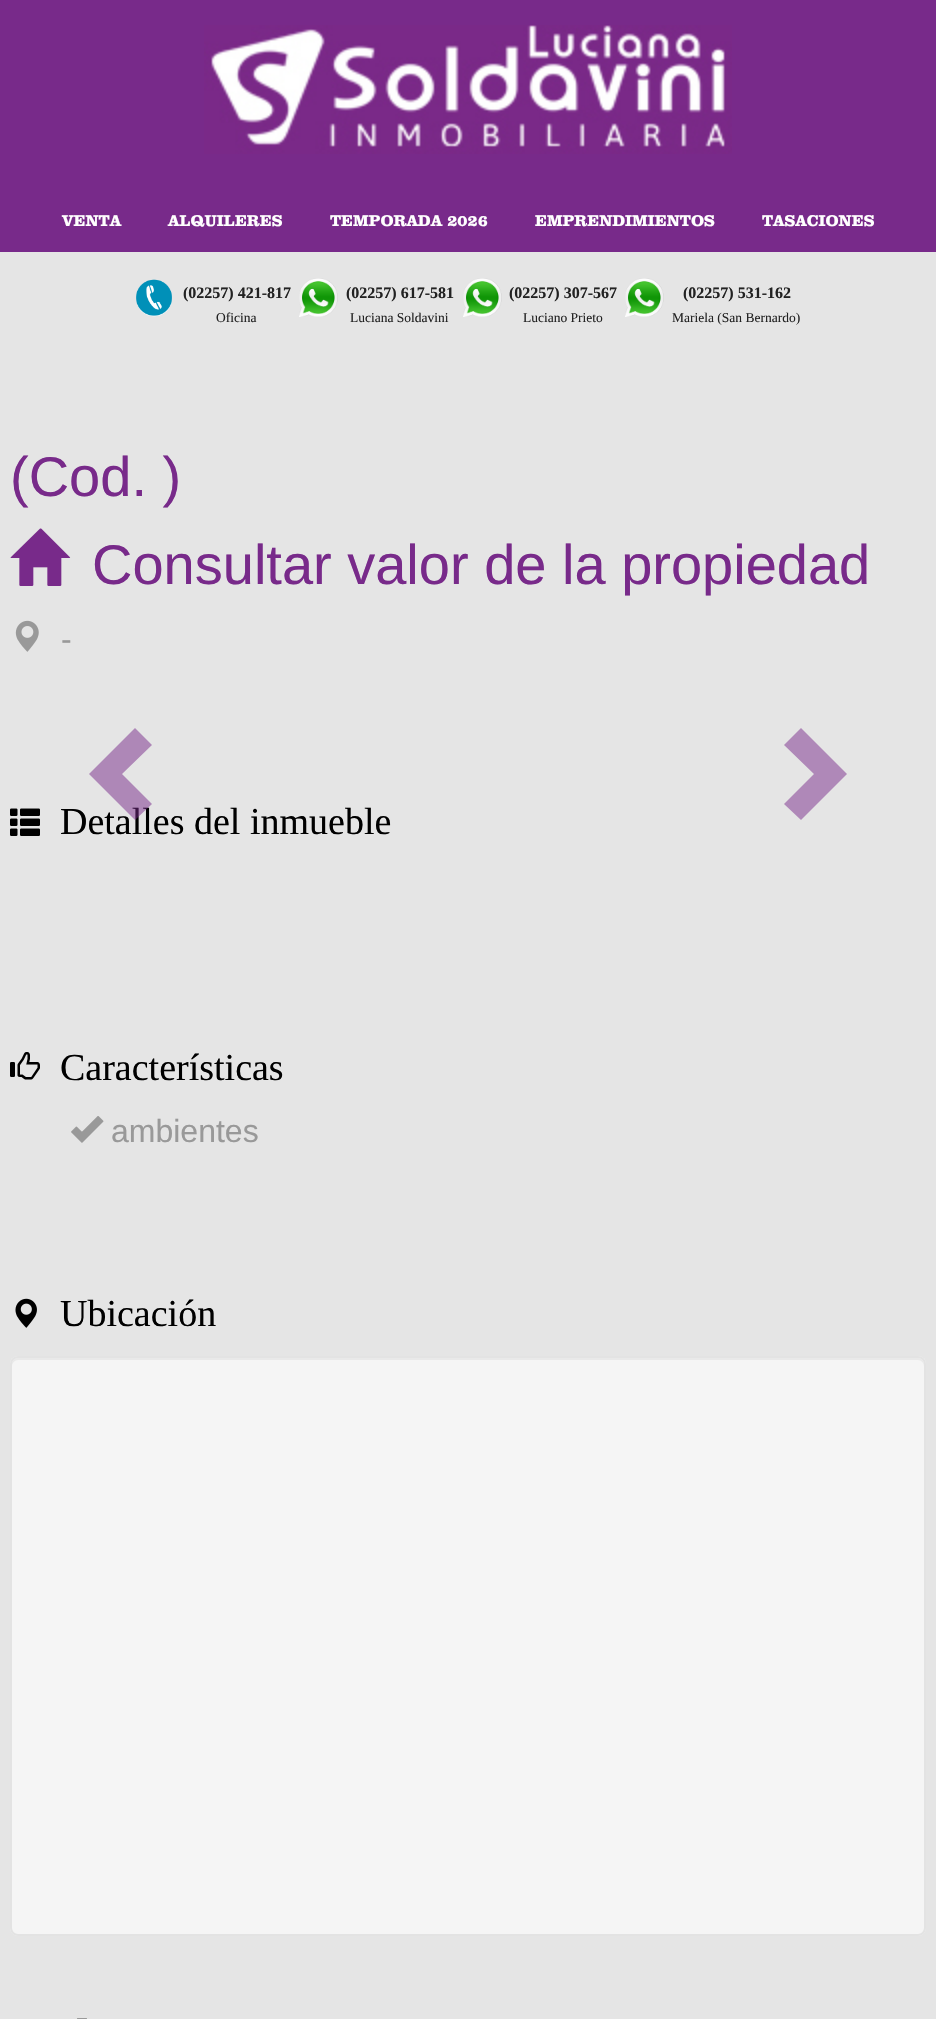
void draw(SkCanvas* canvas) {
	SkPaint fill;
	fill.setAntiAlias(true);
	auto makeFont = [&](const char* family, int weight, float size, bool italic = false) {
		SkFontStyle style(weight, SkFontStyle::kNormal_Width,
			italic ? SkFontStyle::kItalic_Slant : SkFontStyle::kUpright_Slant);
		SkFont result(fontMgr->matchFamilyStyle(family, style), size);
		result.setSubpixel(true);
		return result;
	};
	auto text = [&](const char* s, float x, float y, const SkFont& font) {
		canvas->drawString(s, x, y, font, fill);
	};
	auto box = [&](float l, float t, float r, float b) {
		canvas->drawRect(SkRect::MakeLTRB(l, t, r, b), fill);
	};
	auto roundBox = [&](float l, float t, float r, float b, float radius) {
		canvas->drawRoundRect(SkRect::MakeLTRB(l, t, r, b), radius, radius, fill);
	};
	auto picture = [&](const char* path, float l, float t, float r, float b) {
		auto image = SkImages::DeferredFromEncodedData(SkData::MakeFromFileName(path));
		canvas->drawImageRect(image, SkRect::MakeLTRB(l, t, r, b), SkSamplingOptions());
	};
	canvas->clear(0xFFE5E5E5);
	fill.setColor(0xFF782A8A);
	box(0, 0, 936, 252);
	picture("image0.png", 204, 25, 732, 154);
	picture("image1.png", 136, 279, 172, 317);
	picture("image2.png", 299, 278, 338, 317);
	picture("image2.png", 463, 278, 502, 317);
	picture("image2.png", 625, 278, 664, 317);
	picture("image3.png", 10, 528, 71, 586);
	picture("image4.png", 15, 620, 39, 652);
	fill.setColor(0xFFAF88B8);
	canvas->drawPath(SkPathBuilder().moveTo(847, 774).lineTo(801, 820).lineTo(784, 804).lineTo(814, 774).lineTo(784, 745).lineTo(801, 728).close().detach(), fill);
	picture("image5.png", 10, 808, 40, 836);
	picture("image6.png", 10, 1052, 40, 1080);
	picture("image7.png", 71, 1116, 104, 1143);
	picture("image8.png", 15, 1298, 37, 1328);
	fill.setColor(0xFFF5F5F5);
	roundBox(10, 1356, 926, 1936, 8);
	fill.setColor(0xFFE9E9E9);
	canvas->drawPath(SkPathBuilder().moveTo(18, 1360).lineTo(918, 1360).cubicTo(921, 1360, 924, 1363, 924, 1366).lineTo(924, 1364).cubicTo(924, 1361, 921, 1358, 918, 1358).lineTo(18, 1358).cubicTo(15, 1358, 12, 1361, 12, 1364).lineTo(12, 1366).cubicTo(12, 1363, 15, 1360, 18, 1360).close().detach(), fill);
	fill.setStyle(SkPaint::kStroke_Style);
	fill.setStrokeWidth(2);
	fill.setColor(0xFFE3E3E3);
	canvas->drawRoundRect(SkRect::MakeLTRB(11, 1357, 925, 1935), 7, 7, fill);
	picture("image9.png", 77, 2018, 87, 2019);
	auto font1 = makeFont("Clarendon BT", 700, 16);
	fill.setStyle(SkPaint::kFill_Style);
	fill.setColor(0xFFFFFFFF);
	text("VENTA", 62, 226, font1);
	text("ALQUILERES", 168, 226, font1);
	text("TEMPORADA 2026", 330, 226, font1);
	text("EMPRENDIMIENTOS", 535, 226, font1);
	text("TASACIONES", 762, 226, font1);
	auto font2 = makeFont("Liberation Serif", 700, 16);
	fill.setColor(0xFF222222);
	text("(02257) 421-817", 183, 298, font2);
	auto font3 = makeFont("Liberation Serif", 400, 13.5f);
	text("Oficina", 216, 322, font3);
	text("(02257) 617-581", 346, 298, font2);
	text("Luciana Soldavini", 350, 322, font3);
	text("(02257) 307-567", 509, 298, font2);
	text("Luciano Prieto", 523, 322, font3);
	text("(02257) 531-162", 683, 298, font2);
	text("Mariela (San Bernardo)", 672, 322, font3);
	auto font4 = makeFont("Liberation Sans", 400, 56);
	fill.setColor(0xFF782A8A);
	text("(Cod. )", 10, 496, font4);
	text("Consultar valor de la propiedad", 92, 584, font4);
	auto font5 = makeFont("Liberation Sans", 400, 32);
	fill.setColor(0xFF999999);
	text("-", 61, 650, font5);
	auto font6 = makeFont("Liberation Serif", 400, 38);
	fill.setColor(0xFF000000);
	text("Detalles del inmueble", 60, 834, font6);
	fill.setColor(0x80782A8A);
	canvas->drawPath(SkPathBuilder().moveTo(152, 745).lineTo(122, 774).lineTo(152, 804).lineTo(135, 820).lineTo(89, 774).lineTo(135, 728).close().detach(), fill);
	fill.setColor(0xFF000000);
	text("Características", 60, 1080, font6);
	fill.setColor(0xFF999999);
	text("ambientes", 111, 1142, font5);
	fill.setColor(0xFF000000);
	text("Ubicación", 60, 1326, font6);
}
